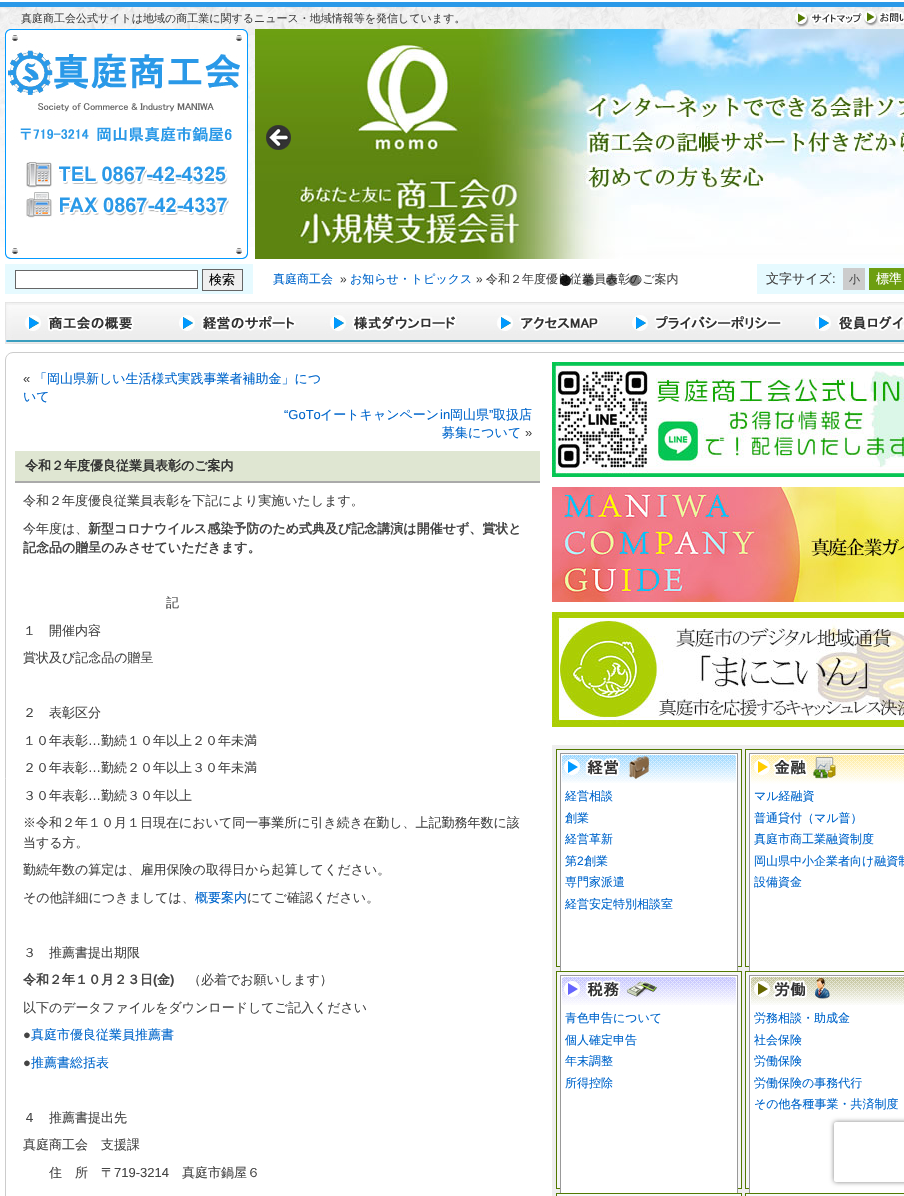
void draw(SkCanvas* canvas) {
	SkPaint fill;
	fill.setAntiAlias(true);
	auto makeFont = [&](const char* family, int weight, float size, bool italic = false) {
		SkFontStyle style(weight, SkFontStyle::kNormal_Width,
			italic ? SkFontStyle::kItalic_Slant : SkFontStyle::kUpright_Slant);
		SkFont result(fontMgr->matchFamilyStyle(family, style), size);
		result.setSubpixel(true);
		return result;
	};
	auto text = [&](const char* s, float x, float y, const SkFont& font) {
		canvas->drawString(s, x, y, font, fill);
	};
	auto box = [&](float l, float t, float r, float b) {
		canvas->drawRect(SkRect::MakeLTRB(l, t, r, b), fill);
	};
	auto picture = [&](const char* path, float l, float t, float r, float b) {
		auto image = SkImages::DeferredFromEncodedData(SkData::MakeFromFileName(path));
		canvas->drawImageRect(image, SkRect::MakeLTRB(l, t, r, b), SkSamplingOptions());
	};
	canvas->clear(0xFFFFFFFF);
	picture("image0.png", 0, 2, 904, 247);
	picture("image1.png", 795, 11, 864, 27);
	picture("image2.png", 864, 11, 904, 26);
	picture("image3.png", 5, 29, 248, 259);
	picture("image4.png", 255, 29, 904, 259);
	picture("image5.png", 266, 125, 291, 150);
	fill.setColor(0xFFE6FAFF);
	box(5, 264, 253, 294);
	fill.setColor(0xFFFFFFFF);
	canvas->drawRect(SkRect::MakeLTRB(15.5f, 270.5f, 197.5f, 288.5f), fill);
	fill.setStyle(SkPaint::kStroke_Style);
	fill.setStrokeWidth(1);
	fill.setColor(0xFF666666);
	canvas->drawRect(SkRect::MakeLTRB(15.5f, 270.5f, 197.5f, 288.5f), fill);
	fill.setStyle(SkPaint::kFill_Style);
	fill.setColor(0xFFEFEFEF);
	canvas->drawRect(SkRect::MakeLTRB(202.5f, 269.5f, 242.5f, 290.5f), fill);
	fill.setStyle(SkPaint::kStroke_Style);
	fill.setColor(0xFF666666);
	canvas->drawRect(SkRect::MakeLTRB(202.5f, 269.5f, 242.5f, 290.5f), fill);
	fill.setStyle(SkPaint::kFill_Style);
	fill.setColor(0xFFE6FAFF);
	box(757, 264, 904, 294);
	fill.setColor(0xFFCCCCCC);
	box(843, 268, 865, 290);
	fill.setColor(0xFF6D9E11);
	box(869, 268, 904, 290);
	picture("image6.png", 5, 302, 904, 344);
	fill.setStyle(SkPaint::kStroke_Style);
	fill.setColor(0xFFCCCCCC);
	canvas->drawRoundRect(SkRect::MakeLTRB(5.5f, 352.5f, 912.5f, 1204.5f), 7.5f, 7.5f, fill);
	fill.setStyle(SkPaint::kFill_Style);
	fill.setColor(0xFFDFE6D2);
	box(15, 451, 540, 481);
	fill.setColor(0xFFAAAAAA);
	box(15, 481, 540, 483);
	picture("image7.png", 552, 362, 904, 477);
	picture("image8.png", 552, 487, 904, 602);
	picture("image9.png", 552, 612, 904, 727);
	fill.setColor(0xFFEEEEEE);
	box(552, 745, 904, 1196);
	fill.setColor(0xFFF7F7F7);
	canvas->drawRect(SkRect::MakeLTRB(556.5f, 749.5f, 741.5f, 966.5f), fill);
	fill.setStyle(SkPaint::kStroke_Style);
	fill.setColor(0xFF527900);
	canvas->drawRect(SkRect::MakeLTRB(556.5f, 749.5f, 741.5f, 966.5f), fill);
	fill.setStyle(SkPaint::kFill_Style);
	fill.setColor(0xFFFFFFFF);
	box(561, 754, 737, 971);
	picture("image10.png", 562, 755, 736, 783);
	fill.setStyle(SkPaint::kStroke_Style);
	fill.setColor(0xFF999999);
	canvas->drawRect(SkRect::MakeLTRB(560.5f, 753.5f, 737.5f, 992.5f), fill);
	fill.setStyle(SkPaint::kFill_Style);
	fill.setColor(0xFFF7F7F7);
	canvas->drawRect(SkRect::MakeLTRB(745.5f, 749.5f, 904.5f, 966.5f), fill);
	fill.setStyle(SkPaint::kStroke_Style);
	fill.setColor(0xFF527900);
	canvas->drawRect(SkRect::MakeLTRB(745.5f, 749.5f, 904.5f, 966.5f), fill);
	fill.setStyle(SkPaint::kFill_Style);
	fill.setColor(0xFFFFFFFF);
	box(750, 754, 904, 971);
	picture("image11.png", 751, 755, 904, 784);
	fill.setStyle(SkPaint::kStroke_Style);
	fill.setColor(0xFF999999);
	canvas->drawRect(SkRect::MakeLTRB(749.5f, 753.5f, 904.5f, 992.5f), fill);
	fill.setStyle(SkPaint::kFill_Style);
	fill.setColor(0xFFF7F7F7);
	canvas->drawRect(SkRect::MakeLTRB(556.5f, 971.5f, 741.5f, 1188.5f), fill);
	fill.setStyle(SkPaint::kStroke_Style);
	fill.setColor(0xFF527900);
	canvas->drawRect(SkRect::MakeLTRB(556.5f, 971.5f, 741.5f, 1188.5f), fill);
	fill.setStyle(SkPaint::kFill_Style);
	fill.setColor(0xFFFFFFFF);
	box(561, 976, 737, 1193);
	picture("image12.png", 562, 977, 736, 1005);
	fill.setStyle(SkPaint::kStroke_Style);
	fill.setColor(0xFF999999);
	canvas->drawRect(SkRect::MakeLTRB(560.5f, 975.5f, 737.5f, 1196.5f), fill);
	fill.setStyle(SkPaint::kFill_Style);
	fill.setColor(0xFFF7F7F7);
	canvas->drawRect(SkRect::MakeLTRB(745.5f, 971.5f, 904.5f, 1188.5f), fill);
	fill.setStyle(SkPaint::kStroke_Style);
	fill.setColor(0xFF527900);
	canvas->drawRect(SkRect::MakeLTRB(745.5f, 971.5f, 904.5f, 1188.5f), fill);
	fill.setStyle(SkPaint::kFill_Style);
	fill.setColor(0xFFFFFFFF);
	box(750, 976, 904, 1193);
	picture("image13.png", 751, 977, 904, 1005);
	fill.setStyle(SkPaint::kStroke_Style);
	fill.setColor(0xFF999999);
	canvas->drawRect(SkRect::MakeLTRB(749.5f, 975.5f, 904.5f, 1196.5f), fill);
	fill.setStyle(SkPaint::kFill_Style);
	fill.setColor(0xFFF7F7F7);
	canvas->drawRect(SkRect::MakeLTRB(556.5f, 1193.5f, 741.5f, 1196.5f), fill);
	fill.setStyle(SkPaint::kStroke_Style);
	fill.setColor(0xFF527900);
	canvas->drawRect(SkRect::MakeLTRB(556.5f, 1193.5f, 741.5f, 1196.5f), fill);
	fill.setStyle(SkPaint::kFill_Style);
	fill.setColor(0xFFF7F7F7);
	canvas->drawRect(SkRect::MakeLTRB(745.5f, 1193.5f, 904.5f, 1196.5f), fill);
	fill.setStyle(SkPaint::kStroke_Style);
	fill.setColor(0xFF527900);
	canvas->drawRect(SkRect::MakeLTRB(745.5f, 1193.5f, 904.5f, 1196.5f), fill);
	canvas->save();
	canvas->clipPath(SkPathBuilder(SkPathFillType::kEvenOdd).moveTo(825, 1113).lineTo(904, 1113).lineTo(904, 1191).lineTo(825, 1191).close().moveTo(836, 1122).lineTo(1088, 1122).cubicTo(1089, 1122, 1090, 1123, 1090, 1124).lineTo(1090, 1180).cubicTo(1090, 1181, 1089, 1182, 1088, 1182).lineTo(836, 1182).cubicTo(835, 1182, 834, 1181, 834, 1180).lineTo(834, 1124).cubicTo(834, 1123, 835, 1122, 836, 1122).close().detach(), true);
	fill.setStyle(SkPaint::kFill_Style);
	fill.setColor(0xFF808080);
	fill.setMaskFilter(SkMaskFilter::MakeBlur(kNormal_SkBlurStyle, 2.5f));
	canvas->drawRoundRect(SkRect::MakeLTRB(834, 1122, 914, 1182), 2, 2, fill);
	fill.setMaskFilter(nullptr);
	canvas->restore();
	auto font1 = makeFont("WenQuanYi Zen Hei", 500, 11);
	fill.setColor(0xFF444444);
	text("真庭商工会公式サイトは地域の商工業に関するニュース・地域情報等を発信しています。", 21, 22, font1);
	auto font2 = makeFont("WenQuanYi Zen Hei", 500, 13);
	fill.setColor(0xFF000000);
	text("検索", 209, 284, font2);
	auto font3 = makeFont("WenQuanYi Zen Hei", 500, 12);
	fill.setColor(0xFF0066CC);
	text("真庭商工会", 273, 283, font3);
	auto font4 = makeFont("Liberation Sans", 400, 12);
	fill.setColor(0xFF444444);
	text("»", 340, 283, font4);
	fill.setColor(0xFF0066CC);
	text("お知らせ・トピックス", 350, 283, font3);
	fill.setColor(0xFF444444);
	text("»", 476, 283, font4);
	text("令和２年度優良従業員表彰のご案内", 486, 283, font3);
	fill.setColor(0x80000000);
	canvas->drawCircle(634.5f, 280.5f, 5.5f, fill);
	canvas->drawCircle(611.5f, 280.5f, 5.5f, fill);
	canvas->drawCircle(588.5f, 280.5f, 5.5f, fill);
	fill.setColor(0xE6000000);
	canvas->drawCircle(565.5f, 280.5f, 5.5f, fill);
	fill.setColor(0xFF444444);
	text("文字サイズ", 766, 283, font2);
	auto font5 = makeFont("Liberation Sans", 400, 13);
	text(":", 832, 283, font5);
	text("小", 849, 283, font1);
	fill.setColor(0xFFFFFFFF);
	text("標準", 876, 283, font2);
	fill.setColor(0xFF444444);
	text("«", 23, 383, font5);
	fill.setColor(0xFF0066CC);
	text("「岡山県新しい生活様式実践事業者補助金」につ", 34, 383, font2);
	text("いて", 23, 401, font2);
	text("“GoTo", 284, 419, font5);
	text("イートキャンペーン", 320, 419, font2);
	text("in", 440, 419, font5);
	text("岡山県", 450, 419, font2);
	text("”", 489, 419, font5);
	text("取扱店", 493, 419, font2);
	text("募集について", 442, 437, font2);
	fill.setColor(0xFF444444);
	text("»", 525, 437, font5);
	auto font6 = makeFont("WenQuanYi Zen Hei", 700, 13);
	fill.setColor(0xFF333333);
	text("令和２年度優良従業員表彰のご案内", 25, 470, font6);
	fill.setColor(0xFF444444);
	text("令和２年度優良従業員表彰を下記により実施いたします。", 23, 505, font2);
	text("今年度は、", 23, 533, font2);
	text("新型コロナウイルス感染予防のため式典及び記念講演は開催せず、賞状と", 88, 533, font6);
	text("記念品の贈呈のみさせていただきます。", 23, 552, font6);
	text("記", 166, 607, font2);
	text("１　開催内容", 23, 635, font2);
	text("賞状及び記念品の贈呈", 23, 662, font2);
	text("２　表彰区分", 23, 717, font2);
	text("１０年表彰", 23, 745, font2);
	text("…", 88, 745, font5);
	text("勤続１０年以上２０年未満", 101, 745, font2);
	text("２０年表彰", 23, 772, font2);
	text("…", 88, 772, font5);
	text("勤続２０年以上３０年未満", 101, 772, font2);
	text("３０年表彰", 23, 800, font2);
	text("…", 88, 800, font5);
	text("勤続３０年以上", 101, 800, font2);
	text("※令和２年１０月１日現在において同一事業所に引き続き在勤し、上記勤務年数に該", 23, 827, font2);
	text("当する方。", 23, 847, font2);
	text("勤続年数の算定は、雇用保険の取得日から起算してください。", 23, 874, font2);
	text("その他詳細につきましては、", 23, 902, font2);
	fill.setColor(0xFF0066CC);
	text("概要案内", 195, 902, font2);
	fill.setColor(0xFF444444);
	text("にてご確認ください。", 247, 902, font2);
	text("３　推薦書提出期限", 23, 957, font2);
	text("令和２年１０月２３日", 23, 984, font6);
	auto font7 = makeFont("Liberation Sans", 700, 13);
	text("(", 153, 984, font7);
	text("金", 157, 984, font6);
	text(")", 170, 984, font7);
	text("（必着でお願いします）", 188, 984, font2);
	text("以下のデータファイルをダウンロードしてご記入ください", 23, 1012, font2);
	text("●", 23, 1039, font5);
	fill.setColor(0xFF0066CC);
	text("真庭市優良従業員推薦書", 31, 1039, font2);
	fill.setColor(0xFF444444);
	text("●", 23, 1067, font5);
	fill.setColor(0xFF0066CC);
	text("推薦書総括表", 31, 1067, font2);
	fill.setColor(0xFF444444);
	text("４　推薦書提出先", 23, 1122, font2);
	text("真庭商工会　支援課", 23, 1149, font2);
	text("住　所　〒", 49, 1177, font2);
	text("719-3214", 114, 1177, font5);
	text("真庭市鍋屋６", 182, 1177, font2);
	fill.setColor(0xFF0066CC);
	text("経営相談", 565, 800, font3);
	text("創業", 565, 822, font3);
	text("経営革新", 565, 843, font3);
	text("第", 565, 865, font3);
	text("2", 577, 865, font4);
	text("創業", 584, 865, font3);
	text("専門家派遣", 565, 886, font3);
	text("経営安定特別相談室", 565, 908, font3);
	text("マル経融資", 754, 800, font3);
	text("普通貸付（マル普）", 754, 822, font3);
	text("真庭市商工業融資制度", 754, 843, font3);
	text("岡山県中小企業者向け融資制", 754, 865, font3);
	text("設備資金", 754, 886, font3);
	text("青色申告について", 565, 1022, font3);
	text("個人確定申告", 565, 1044, font3);
	text("年末調整", 565, 1065, font3);
	text("所得控除", 565, 1087, font3);
	text("労務相談・助成金", 754, 1022, font3);
	text("社会保険", 754, 1044, font3);
	text("労働保険", 754, 1065, font3);
	text("労働保険の事務代行", 754, 1087, font3);
	text("その他各種事業・共済制度", 754, 1108, font3);
}
